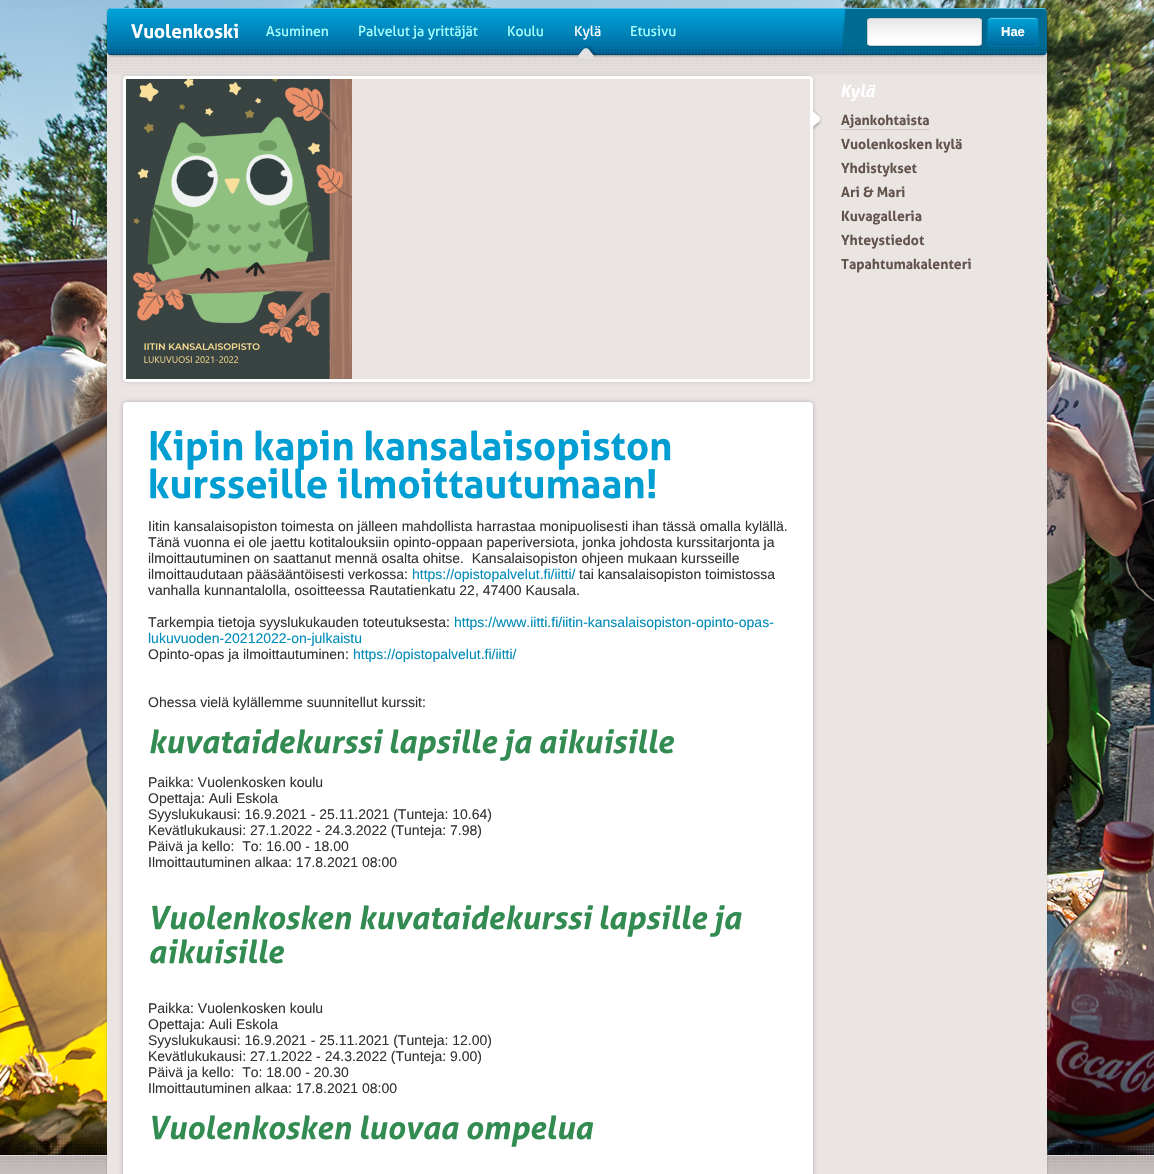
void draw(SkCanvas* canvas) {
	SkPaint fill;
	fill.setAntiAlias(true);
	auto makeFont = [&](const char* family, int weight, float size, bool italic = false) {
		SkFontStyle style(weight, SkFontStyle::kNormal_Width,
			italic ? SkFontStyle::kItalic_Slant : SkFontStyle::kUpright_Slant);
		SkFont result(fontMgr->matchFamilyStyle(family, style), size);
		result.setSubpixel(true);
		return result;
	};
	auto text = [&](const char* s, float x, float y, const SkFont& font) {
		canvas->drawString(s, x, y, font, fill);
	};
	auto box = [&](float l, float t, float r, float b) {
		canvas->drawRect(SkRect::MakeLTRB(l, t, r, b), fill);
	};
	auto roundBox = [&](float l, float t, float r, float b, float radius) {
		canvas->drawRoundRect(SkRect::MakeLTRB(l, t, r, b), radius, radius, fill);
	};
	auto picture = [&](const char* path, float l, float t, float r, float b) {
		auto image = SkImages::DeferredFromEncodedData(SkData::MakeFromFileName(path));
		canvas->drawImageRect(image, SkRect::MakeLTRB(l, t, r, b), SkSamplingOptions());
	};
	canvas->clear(0xFFFFFFFF);
	picture("image0.png", 0, 0, 1154, 1155);
	picture("image1.png", 0, 1129, 1154, 1155);
	picture("image2.png", 0, 1156, 1154, 1174);
	fill.setColor(0xFFE0DCDB);
	box(0, 1155, 1154, 1156);
	fill.setColor(0x4D000000);
	fill.setMaskFilter(SkMaskFilter::MakeBlur(kNormal_SkBlurStyle, 1));
	canvas->drawRoundRect(SkRect::MakeLTRB(107, 49, 1047, 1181), 4, 4, fill);
	fill.setMaskFilter(nullptr);
	fill.setColor(0xFFEAE4E3);
	roundBox(107, 50, 1047, 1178, 4);
	picture("image5.png", 107, 51, 1047, 75);
	fill.setColor(0x4D000000);
	fill.setMaskFilter(SkMaskFilter::MakeBlur(kNormal_SkBlurStyle, 1));
	canvas->drawRoundRect(SkRect::MakeLTRB(107, 9, 1047, 56), 5, 5, fill);
	fill.setMaskFilter(nullptr);
	fill.setColor(0xFF00A3D9);
	roundBox(107, 8, 1047, 55, 5);
	canvas->save();
	canvas->clipPath(SkPathBuilder().moveTo(112, 8).lineTo(1042, 8).cubicTo(1045, 8, 1047, 10, 1047, 13).lineTo(1047, 50).cubicTo(1047, 53, 1045, 55, 1042, 55).lineTo(112, 55).cubicTo(109, 55, 107, 53, 107, 50).lineTo(107, 13).cubicTo(107, 10, 109, 8, 112, 8).close().detach(), true);
	{
		const SkColor colors[] = {0xFF00A3D9, 0xFF00679B};
		const float stops[] = {0, 1};
		const SkPoint ends[] = {{577, -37}, {577, 9}};
		fill.setShader(SkGradientShader::MakeLinear(ends, colors, stops, 2, SkTileMode::kClamp));
		fill.setAlpha(255);
	}
	box(107, 8, 110, 9);
	{
		const SkColor colors[] = {0xFF00A3D9, 0xFF00679B};
		const float stops[] = {0, 1};
		const SkPoint ends[] = {{577, 9}, {577, 55}};
		fill.setShader(SkGradientShader::MakeLinear(ends, colors, stops, 2, SkTileMode::kClamp));
		fill.setAlpha(255);
	}
	canvas->drawPath(SkPathBuilder().moveTo(107, 9).lineTo(1047, 9).lineTo(1047, 50).cubicTo(1047, 53, 1045, 55, 1042, 55).lineTo(112, 55).cubicTo(109, 55, 107, 53, 107, 50).close().detach(), fill);
	canvas->restore();
	fill.setShader(nullptr);
	fill.setColor(0xFF4DBFE4);
	box(110, 8, 1045, 9);
	{
		const SkColor colors[] = {0x00006B92, 0xFF006B92};
		const float stops[] = {0.01f, 0.02f};
		const SkPoint ends[] = {{841, 23}, {1048, 41}};
		fill.setShader(SkGradientShader::MakeLinear(ends, colors, stops, 2, SkTileMode::kClamp));
		fill.setAlpha(255);
	}
	canvas->drawPath(SkPathBuilder().moveTo(842, 9).lineTo(1042, 9).cubicTo(1045, 9, 1047, 11, 1047, 14).lineTo(1047, 50).cubicTo(1047, 53, 1045, 55, 1042, 55).lineTo(842, 55).close().detach(), fill);
	fill.setShader(nullptr);
	fill.setColor(0x26000000);
	fill.setMaskFilter(SkMaskFilter::MakeBlur(kNormal_SkBlurStyle, 1.5f));
	canvas->drawRoundRect(SkRect::MakeLTRB(868, 19, 983, 47), 3, 3, fill);
	fill.setMaskFilter(nullptr);
	picture("image4.png", 107, 47, 1047, 55);
	picture("image3.png", 577, 46, 597, 58);
	canvas->save();
	canvas->clipPath(SkPathBuilder().moveTo(870, 18).lineTo(979, 18).cubicTo(980.5f, 18, 982, 19.5f, 982, 21).lineTo(982, 43).cubicTo(982, 44.5f, 980.5f, 46, 979, 46).lineTo(870, 46).cubicTo(868.5f, 46, 867, 44.5f, 867, 43).lineTo(867, 21).cubicTo(867, 19.5f, 868.5f, 18, 870, 18).close().detach(), true);
	{
		const SkColor colors[] = {0xFFFFFFFF, 0xFFE7E6E6};
		const float stops[] = {0.2f, 1};
		const SkPoint ends[] = {{925, 45}, {925, 19}};
		fill.setShader(SkGradientShader::MakeLinear(ends, colors, stops, 2, SkTileMode::kClamp));
		fill.setAlpha(255);
	}
	box(867, 19, 982, 45);
	canvas->restore();
	fill.setStyle(SkPaint::kStroke_Style);
	fill.setStrokeWidth(1);
	fill.setShader(nullptr);
	fill.setColor(0xFFCCCCCC);
	canvas->drawRoundRect(SkRect::MakeLTRB(867.5f, 18.5f, 981.5f, 45.5f), 2.5f, 2.5f, fill);
	canvas->save();
	canvas->clipPath(SkPathBuilder().moveTo(991, 17).lineTo(1035, 17).cubicTo(1037, 17, 1039, 19, 1039, 21).lineTo(1039, 43).cubicTo(1039, 45, 1037, 47, 1035, 47).lineTo(991, 47).cubicTo(989, 47, 987, 45, 987, 43).lineTo(987, 21).cubicTo(987, 19, 989, 17, 991, 17).close().detach(), true);
	fill.setStyle(SkPaint::kFill_Style);
	{
		const SkColor colors[] = {0xFF00A3D9, 0xFF00679B};
		const float stops[] = {0, 1};
		const SkPoint ends[] = {{1013, 18}, {1013, 46}};
		fill.setShader(SkGradientShader::MakeLinear(ends, colors, stops, 2, SkTileMode::kClamp));
		fill.setAlpha(255);
	}
	box(988, 18, 1038, 46);
	canvas->restore();
	fill.setShader(nullptr);
	fill.setColor(0xFF59C3E6);
	canvas->drawPath(SkPathBuilder().moveTo(991, 19).lineTo(1035, 19).cubicTo(1037, 19, 1038, 20, 1038, 22).cubicTo(1038, 16, 1032, 18, 1028, 18).lineTo(998, 18).cubicTo(994, 18, 988, 16, 988, 22).cubicTo(988, 20, 989, 19, 991, 19).close().detach(), fill);
	fill.setStyle(SkPaint::kStroke_Style);
	fill.setColor(0xFF0077A4);
	canvas->drawRoundRect(SkRect::MakeLTRB(987.5f, 17.5f, 1038.5f, 46.5f), 3.5f, 3.5f, fill);
	canvas->save();
	canvas->clipPath(SkPathBuilder(SkPathFillType::kEvenOdd).moveTo(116, 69).lineTo(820, 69).lineTo(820, 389).lineTo(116, 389).close().moveTo(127, 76).lineTo(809, 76).cubicTo(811, 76, 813, 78, 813, 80).lineTo(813, 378).cubicTo(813, 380, 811, 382, 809, 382).lineTo(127, 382).cubicTo(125, 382, 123, 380, 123, 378).lineTo(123, 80).cubicTo(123, 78, 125, 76, 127, 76).close().detach(), true);
	fill.setStyle(SkPaint::kFill_Style);
	fill.setColor(0x26000000);
	fill.setMaskFilter(SkMaskFilter::MakeBlur(kNormal_SkBlurStyle, 2));
	canvas->drawRoundRect(SkRect::MakeLTRB(123, 76, 813, 382), 4, 4, fill);
	fill.setMaskFilter(nullptr);
	canvas->restore();
	picture("image6.png", 813, 110, 822, 130);
	fill.setColor(0xFFD0C9C7);
	box(841, 129, 930, 130);
	fill.setStyle(SkPaint::kStroke_Style);
	fill.setStrokeWidth(3);
	fill.setColor(0xFFFFFFFF);
	canvas->drawRoundRect(SkRect::MakeLTRB(124.5f, 77.5f, 811.5f, 380.5f), 2.5f, 2.5f, fill);
	picture("image7.png", 126, 79, 352, 379);
	fill.setStyle(SkPaint::kFill_Style);
	fill.setColor(0x40000000);
	fill.setMaskFilter(SkMaskFilter::MakeBlur(kNormal_SkBlurStyle, 2));
	canvas->drawRoundRect(SkRect::MakeLTRB(123, 402, 813, 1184), 4, 4, fill);
	fill.setMaskFilter(nullptr);
	fill.setColor(0xFFFFFFFF);
	roundBox(123, 402, 813, 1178, 4);
	auto font1 = makeFont("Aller", 700, 19);
	text("Vuolenkoski", 131, 38, font1);
	auto font2 = makeFont("Aller", 400, 14);
	fill.setColor(0xFFA7FFFF);
	text("Asuminen", 266, 36, font2);
	text("Palvelut ja yrittäjät", 358, 36, font2);
	text("Koulu", 507, 36, font2);
	fill.setColor(0xFFFFFFFF);
	text("Kylä", 574, 36, font2);
	fill.setColor(0xFFA7FFFF);
	text("Etusivu", 630, 36, font2);
	auto font3 = makeFont("Liberation Sans", 700, 13);
	fill.setColor(0xFFFFFFFF);
	text("Hae", 1001, 36, font3);
	auto font4 = makeFont("Aller", 700, 17, true);
	text("Kylä", 840, 97, font4);
	auto font5 = makeFont("Aller", 700, 14);
	fill.setColor(0xFF62534D);
	text("Ajankohtaista", 841, 125, font5);
	text("Vuolenkosken kylä", 841, 149, font5);
	text("Yhdistykset", 841, 173, font5);
	text("Ari & Mari", 841, 197, font5);
	text("Kuvagalleria", 841, 221, font5);
	text("Yhteystiedot", 841, 245, font5);
	text("Tapahtumakalenteri", 841, 269, font5);
	auto font6 = makeFont("Aller", 700, 40);
	fill.setColor(0xFF009ED2);
	text("Kipin kapin kansalaisopiston", 148, 460, font6);
	text("kursseille ilmoittautumaan!", 148, 498, font6);
	auto font7 = makeFont("Liberation Sans", 400, 14);
	fill.setColor(0xFF333333);
	text("Iitin kansalaisopiston toimesta on jälleen mahdollista harrastaa monipuolisesti ihan tässä omalla kylällä.", 148, 531, font7);
	text("Tänä vuonna ei ole jaettu kotitalouksiin opinto-oppaan paperiversiota, jonka johdosta kurssitarjonta ja", 148, 547, font7);
	text("ilmoittautuminen on saattanut mennä osalta ohitse.  Kansalaisopiston ohjeen mukaan kursseille", 148, 563, font7);
	text("ilmoittaudutaan pääsääntöisesti verkossa:", 148, 579, font7);
	fill.setColor(0xFF008BB9);
	text("https://opistopalvelut.fi/iitti/", 412, 579, font7);
	fill.setColor(0xFF333333);
	text("tai kansalaisopiston toimistossa", 579, 579, font7);
	text("vanhalla kunnantalolla, osoitteessa Rautatienkatu 22, 47400 Kausala.", 148, 595, font7);
	text("Tarkempia tietoja syyslukukauden toteutuksesta:", 148, 627, font7);
	fill.setColor(0xFF008BB9);
	text("https://www.iitti.fi/iitin-kansalaisopiston-opinto-opas-", 454, 627, font7);
	text("lukuvuoden-20212022-on-julkaistu", 148, 643, font7);
	fill.setColor(0xFF333333);
	text("Opinto-opas ja ilmoittautuminen:", 148, 659, font7);
	fill.setColor(0xFF008BB9);
	text("https://opistopalvelut.fi/iitti/", 353, 659, font7);
	fill.setColor(0xFF333333);
	text("Ohessa vielä kylällemme suunnitellut kurssit:", 148, 707, font7);
	auto font8 = makeFont("Aller", 700, 32, true);
	fill.setColor(0xFF328C52);
	text("kuvataidekurssi lapsille ja aikuisille", 148, 753, font8);
	fill.setColor(0xFF333333);
	text("Paikka: Vuolenkosken koulu", 148, 787, font7);
	text("Opettaja: Auli Eskola", 148, 803, font7);
	text("Syyslukukausi: 16.9.2021 - 25.11.2021 (Tunteja: 10.64)", 148, 819, font7);
	text("Kevätlukukausi: 27.1.2022 - 24.3.2022 (Tunteja: 7.98)", 148, 835, font7);
	text("Päivä ja kello:  To: 16.00 - 18.00", 148, 851, font7);
	text("Ilmoittautuminen alkaa: 17.8.2021 08:00", 148, 867, font7);
	fill.setColor(0xFF328C52);
	text("Vuolenkosken kuvataidekurssi lapsille ja", 148, 929, font8);
	text("aikuisille", 148, 963, font8);
	fill.setColor(0xFF333333);
	text("Paikka: Vuolenkosken koulu", 148, 1013, font7);
	text("Opettaja: Auli Eskola", 148, 1029, font7);
	text("Syyslukukausi: 16.9.2021 - 25.11.2021 (Tunteja: 12.00)", 148, 1045, font7);
	text("Kevätlukukausi: 27.1.2022 - 24.3.2022 (Tunteja: 9.00)", 148, 1061, font7);
	text("Päivä ja kello:  To: 18.00 - 20.30", 148, 1077, font7);
	text("Ilmoittautuminen alkaa: 17.8.2021 08:00", 148, 1093, font7);
	fill.setColor(0xFF328C52);
	text("Vuolenkosken luovaa ompelua", 148, 1139, font8);
}
